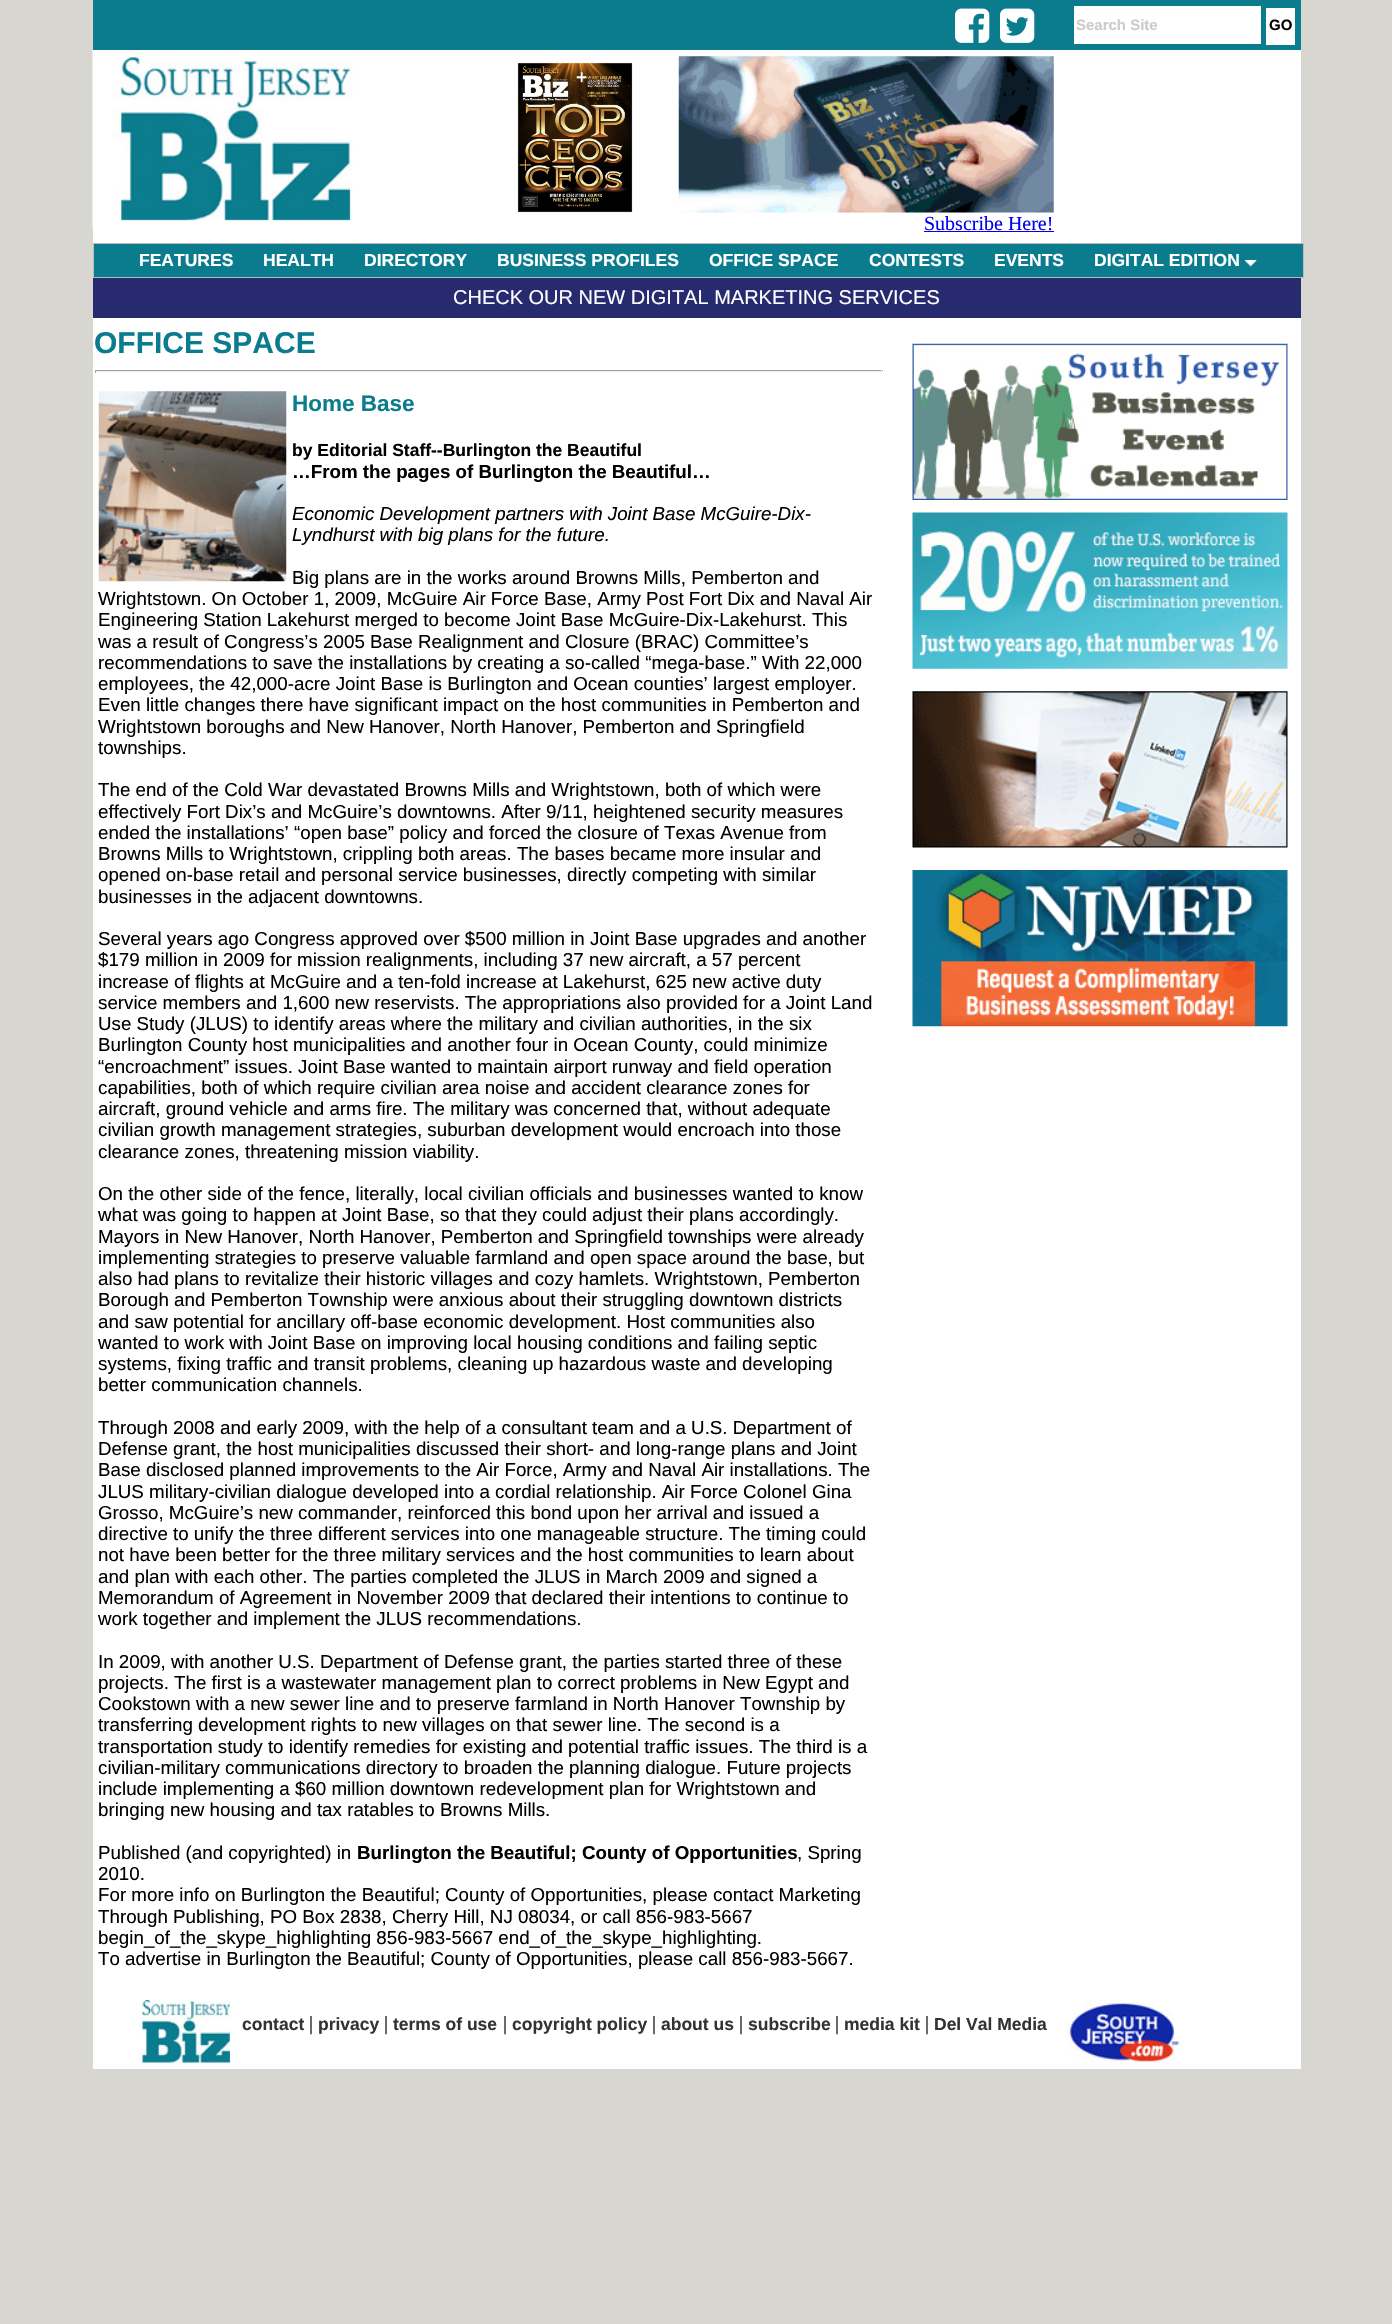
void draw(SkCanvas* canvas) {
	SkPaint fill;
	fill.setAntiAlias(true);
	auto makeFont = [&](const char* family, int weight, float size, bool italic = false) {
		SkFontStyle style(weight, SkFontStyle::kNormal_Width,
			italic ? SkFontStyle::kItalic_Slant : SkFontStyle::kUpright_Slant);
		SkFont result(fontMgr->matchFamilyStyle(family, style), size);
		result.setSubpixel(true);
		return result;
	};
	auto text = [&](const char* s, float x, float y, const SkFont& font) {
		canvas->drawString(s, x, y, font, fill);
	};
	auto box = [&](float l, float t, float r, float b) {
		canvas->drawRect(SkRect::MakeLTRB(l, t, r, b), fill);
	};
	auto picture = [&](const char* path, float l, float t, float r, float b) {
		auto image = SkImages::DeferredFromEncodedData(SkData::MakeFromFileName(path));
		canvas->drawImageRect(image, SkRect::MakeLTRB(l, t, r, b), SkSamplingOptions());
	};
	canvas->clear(0xFFD8D6D0);
	fill.setColor(0xFFFFFFFF);
	box(93, 50, 1301, 2069);
	fill.setColor(0xFF0B7C8E);
	box(93, 0, 1301, 50);
	picture("image0.png", 955, 8, 990, 43);
	picture("image1.png", 1000, 8, 1035, 43);
	fill.setColor(0xFFFFFFFF);
	box(1074, 6, 1261, 44);
	box(1266, 8, 1295, 45);
	picture("image2.png", 92, 50, 353, 229);
	picture("image3.png", 517, 62, 633, 213);
	picture("image4.png", 678, 56, 1054, 213);
	fill.setColor(0xFF0000EE);
	box(924, 231, 1054, 232);
	fill.setColor(0xFF0B7C8E);
	canvas->drawRect(SkRect::MakeLTRB(93.5f, 243.5f, 1303.5f, 277.5f), fill);
	fill.setStyle(SkPaint::kStroke_Style);
	fill.setStrokeWidth(1);
	fill.setColor(0xFFBBBBBB);
	canvas->drawRect(SkRect::MakeLTRB(93.5f, 243.5f, 1303.5f, 277.5f), fill);
	picture("image5.png", 1245, 260, 1257, 267);
	fill.setStyle(SkPaint::kFill_Style);
	fill.setColor(0xFF272A6F);
	box(93, 278, 1301, 318);
	fill.setColor(0xFF9F9F9F);
	box(95, 370, 883, 371);
	fill.setColor(0xFFEEEEEE);
	box(881, 370, 882, 373);
	box(95, 371, 883, 372);
	fill.setColor(0xFF9F9F9F);
	box(95, 370, 96, 373);
	picture("image6.png", 98, 391, 287, 582);
	picture("image7.png", 912, 343, 1288, 500);
	picture("image8.png", 912, 512, 1288, 669);
	picture("image9.png", 912, 691, 1288, 848);
	picture("image10.png", 912, 870, 1288, 1027);
	picture("image11.png", 142, 2000, 230, 2063);
	picture("image12.png", 1065, 2000, 1185, 2062);
	auto font1 = makeFont("Liberation Sans", 700, 15);
	fill.setColor(0xFFCCCCCC);
	text("Search Site", 1076, 30, font1);
	fill.setColor(0xFF000000);
	text("GO", 1269, 30, font1);
	auto font2 = makeFont("Liberation Serif", 400, 20);
	fill.setColor(0xFF0000EE);
	text("Subscribe Here!", 924, 230, font2);
	auto font3 = makeFont("Liberation Sans", 700, 17.5f);
	fill.setColor(0xFFFFFFFF);
	text("FEATURES", 139, 266, font3);
	text("HEALTH", 263, 266, font3);
	text("DIRECTORY", 364, 266, font3);
	text("BUSINESS PROFILES", 497, 266, font3);
	text("OFFICE SPACE", 709, 266, font3);
	text("CONTESTS", 869, 266, font3);
	text("EVENTS", 994, 266, font3);
	text("DIGITAL EDITION", 1094, 266, font3);
	auto font4 = makeFont("Liberation Sans", 400, 20);
	text("CHECK OUR NEW DIGITAL MARKETING SERVICES", 453, 304, font4);
	auto font5 = makeFont("Liberation Sans", 700, 30);
	fill.setColor(0xFF0B7C8E);
	text("OFFICE SPACE", 94, 353, font5);
	auto font6 = makeFont("Liberation Sans", 700, 22.5f);
	text("Home Base", 292, 411, font6);
	fill.setColor(0xFF000000);
	text("by Editorial Staff--Burlington the Beautiful", 292, 456, font3);
	auto font7 = makeFont("Liberation Sans", 700, 18.75f);
	text("…From the pages of Burlington the Beautiful…", 292, 478, font7);
	auto font8 = makeFont("Liberation Sans", 400, 18.75f, true);
	text("Economic Development partners with Joint Base McGuire-Dix-", 292, 520, font8);
	text("Lyndhurst with big plans for the future.", 292, 541, font8);
	auto font9 = makeFont("Liberation Sans", 400, 18.75f);
	text("Big plans are in the works around Browns Mills, Pemberton and", 292, 584, font9);
	text("Wrightstown. On October 1, 2009, McGuire Air Force Base, Army Post Fort Dix and Naval Air", 98, 605, font9);
	text("Engineering Station Lakehurst merged to become Joint Base McGuire-Dix-Lakehurst. This", 98, 626, font9);
	text("was a result of Congress’s 2005 Base Realignment and Closure (BRAC) Committee’s", 98, 648, font9);
	text("recommendations to save the installations by creating a so-called “mega-base.” With 22,000", 98, 669, font9);
	text("employees, the 42,000-acre Joint Base is Burlington and Ocean counties’ largest employer.", 98, 690, font9);
	text("Even little changes there have significant impact on the host communities in Pemberton and", 98, 711, font9);
	text("Wrightstown boroughs and New Hanover, North Hanover, Pemberton and Springfield", 98, 733, font9);
	text("townships.", 98, 754, font9);
	text("The end of the Cold War devastated Browns Mills and Wrightstown, both of which were", 98, 796, font9);
	text("effectively Fort Dix’s and McGuire’s downtowns. After 9/11, heightened security measures", 98, 818, font9);
	text("ended the installations’ “open base” policy and forced the closure of Texas Avenue from", 98, 839, font9);
	text("Browns Mills to Wrightstown, crippling both areas. The bases became more insular and", 98, 860, font9);
	text("opened on-base retail and personal service businesses, directly competing with similar", 98, 881, font9);
	text("businesses in the adjacent downtowns.", 98, 903, font9);
	text("Several years ago Congress approved over $500 million in Joint Base upgrades and another", 98, 945, font9);
	text("$179 million in 2009 for mission realignments, including 37 new aircraft, a 57 percent", 98, 966, font9);
	text("increase of flights at McGuire and a ten-fold increase at Lakehurst, 625 new active duty", 98, 988, font9);
	text("service members and 1,600 new reservists. The appropriations also provided for a Joint Land", 98, 1009, font9);
	text("Use Study (JLUS) to identify areas where the military and civilian authorities, in the six", 98, 1030, font9);
	text("Burlington County host municipalities and another four in Ocean County, could minimize", 98, 1051, font9);
	text("“encroachment” issues. Joint Base wanted to maintain airport runway and field operation", 98, 1073, font9);
	text("capabilities, both of which require civilian area noise and accident clearance zones for", 98, 1094, font9);
	text("aircraft, ground vehicle and arms fire. The military was concerned that, without adequate", 98, 1115, font9);
	text("civilian growth management strategies, suburban development would encroach into those", 98, 1136, font9);
	text("clearance zones, threatening mission viability.", 98, 1158, font9);
	text("On the other side of the fence, literally, local civilian officials and businesses wanted to know", 98, 1200, font9);
	text("what was going to happen at Joint Base, so that they could adjust their plans accordingly.", 98, 1221, font9);
	text("Mayors in New Hanover, North Hanover, Pemberton and Springfield townships were already", 98, 1243, font9);
	text("implementing strategies to preserve valuable farmland and open space around the base, but", 98, 1264, font9);
	text("also had plans to revitalize their historic villages and cozy hamlets. Wrightstown, Pemberton", 98, 1285, font9);
	text("Borough and Pemberton Township were anxious about their struggling downtown districts", 98, 1306, font9);
	text("and saw potential for ancillary off-base economic development. Host communities also", 98, 1328, font9);
	text("wanted to work with Joint Base on improving local housing conditions and failing septic", 98, 1349, font9);
	text("systems, fixing traffic and transit problems, cleaning up hazardous waste and developing", 98, 1370, font9);
	text("better communication channels.", 98, 1391, font9);
	text("Through 2008 and early 2009, with the help of a consultant team and a U.S. Department of", 98, 1434, font9);
	text("Defense grant, the host municipalities discussed their short- and long-range plans and Joint", 98, 1455, font9);
	text("Base disclosed planned improvements to the Air Force, Army and Naval Air installations. The", 98, 1476, font9);
	text("JLUS military-civilian dialogue developed into a cordial relationship. Air Force Colonel Gina", 98, 1498, font9);
	text("Grosso, McGuire’s new commander, reinforced this bond upon her arrival and issued a", 98, 1519, font9);
	text("directive to unify the three different services into one manageable structure. The timing could", 98, 1540, font9);
	text("not have been better for the three military services and the host communities to learn about", 98, 1561, font9);
	text("and plan with each other. The parties completed the JLUS in March 2009 and signed a", 98, 1583, font9);
	text("Memorandum of Agreement in November 2009 that declared their intentions to continue to", 98, 1604, font9);
	text("work together and implement the JLUS recommendations.", 98, 1625, font9);
	text("In 2009, with another U.S. Department of Defense grant, the parties started three of these", 98, 1668, font9);
	text("projects. The first is a wastewater management plan to correct problems in New Egypt and", 98, 1689, font9);
	text("Cookstown with a new sewer line and to preserve farmland in North Hanover Township by", 98, 1710, font9);
	text("transferring development rights to new villages on that sewer line. The second is a", 98, 1731, font9);
	text("transportation study to identify remedies for existing and potential traffic issues. The third is a", 98, 1753, font9);
	text("civilian-military communications directory to broaden the planning dialogue. Future projects", 98, 1774, font9);
	text("include implementing a $60 million downtown redevelopment plan for Wrightstown and", 98, 1795, font9);
	text("bringing new housing and tax ratables to Browns Mills.", 98, 1816, font9);
	text("Published (and copyrighted) in", 98, 1859, font9);
	text("Burlington the Beautiful; County of Opportunities", 357, 1859, font7);
	text(", Spring", 797, 1859, font9);
	text("2010.", 98, 1880, font9);
	text("For more info on Burlington the Beautiful; County of Opportunities, please contact Marketing", 98, 1901, font9);
	text("Through Publishing, PO Box 2838, Cherry Hill, NJ 08034, or call 856-983-5667", 98, 1923, font9);
	text("begin_of_the_skype_highlighting 856-983-5667 end_of_the_skype_highlighting.", 98, 1944, font9);
	text("To advertise in Burlington the Beautiful; County of Opportunities, please call 856-983-5667.", 98, 1965, font9);
	fill.setColor(0xFF333333);
	text("contact", 242, 2030, font3);
	fill.setColor(0xFF000000);
	text("|", 309, 2030, font2);
	fill.setColor(0xFF333333);
	text("privacy", 318, 2030, font3);
	fill.setColor(0xFF000000);
	text("|", 384, 2030, font2);
	fill.setColor(0xFF333333);
	text("terms of use", 393, 2030, font3);
	fill.setColor(0xFF000000);
	text("|", 503, 2030, font2);
	fill.setColor(0xFF333333);
	text("copyright policy", 512, 2030, font3);
	fill.setColor(0xFF000000);
	text("|", 652, 2030, font2);
	fill.setColor(0xFF333333);
	text("about us", 661, 2030, font3);
	fill.setColor(0xFF000000);
	text("|", 739, 2030, font2);
	fill.setColor(0xFF333333);
	text("subscribe", 748, 2030, font3);
	fill.setColor(0xFF000000);
	text("|", 835, 2030, font2);
	fill.setColor(0xFF333333);
	text("media kit", 844, 2030, font3);
	fill.setColor(0xFF000000);
	text("|", 925, 2030, font2);
	fill.setColor(0xFF333333);
	text("Del Val Media", 934, 2030, font3);
}
